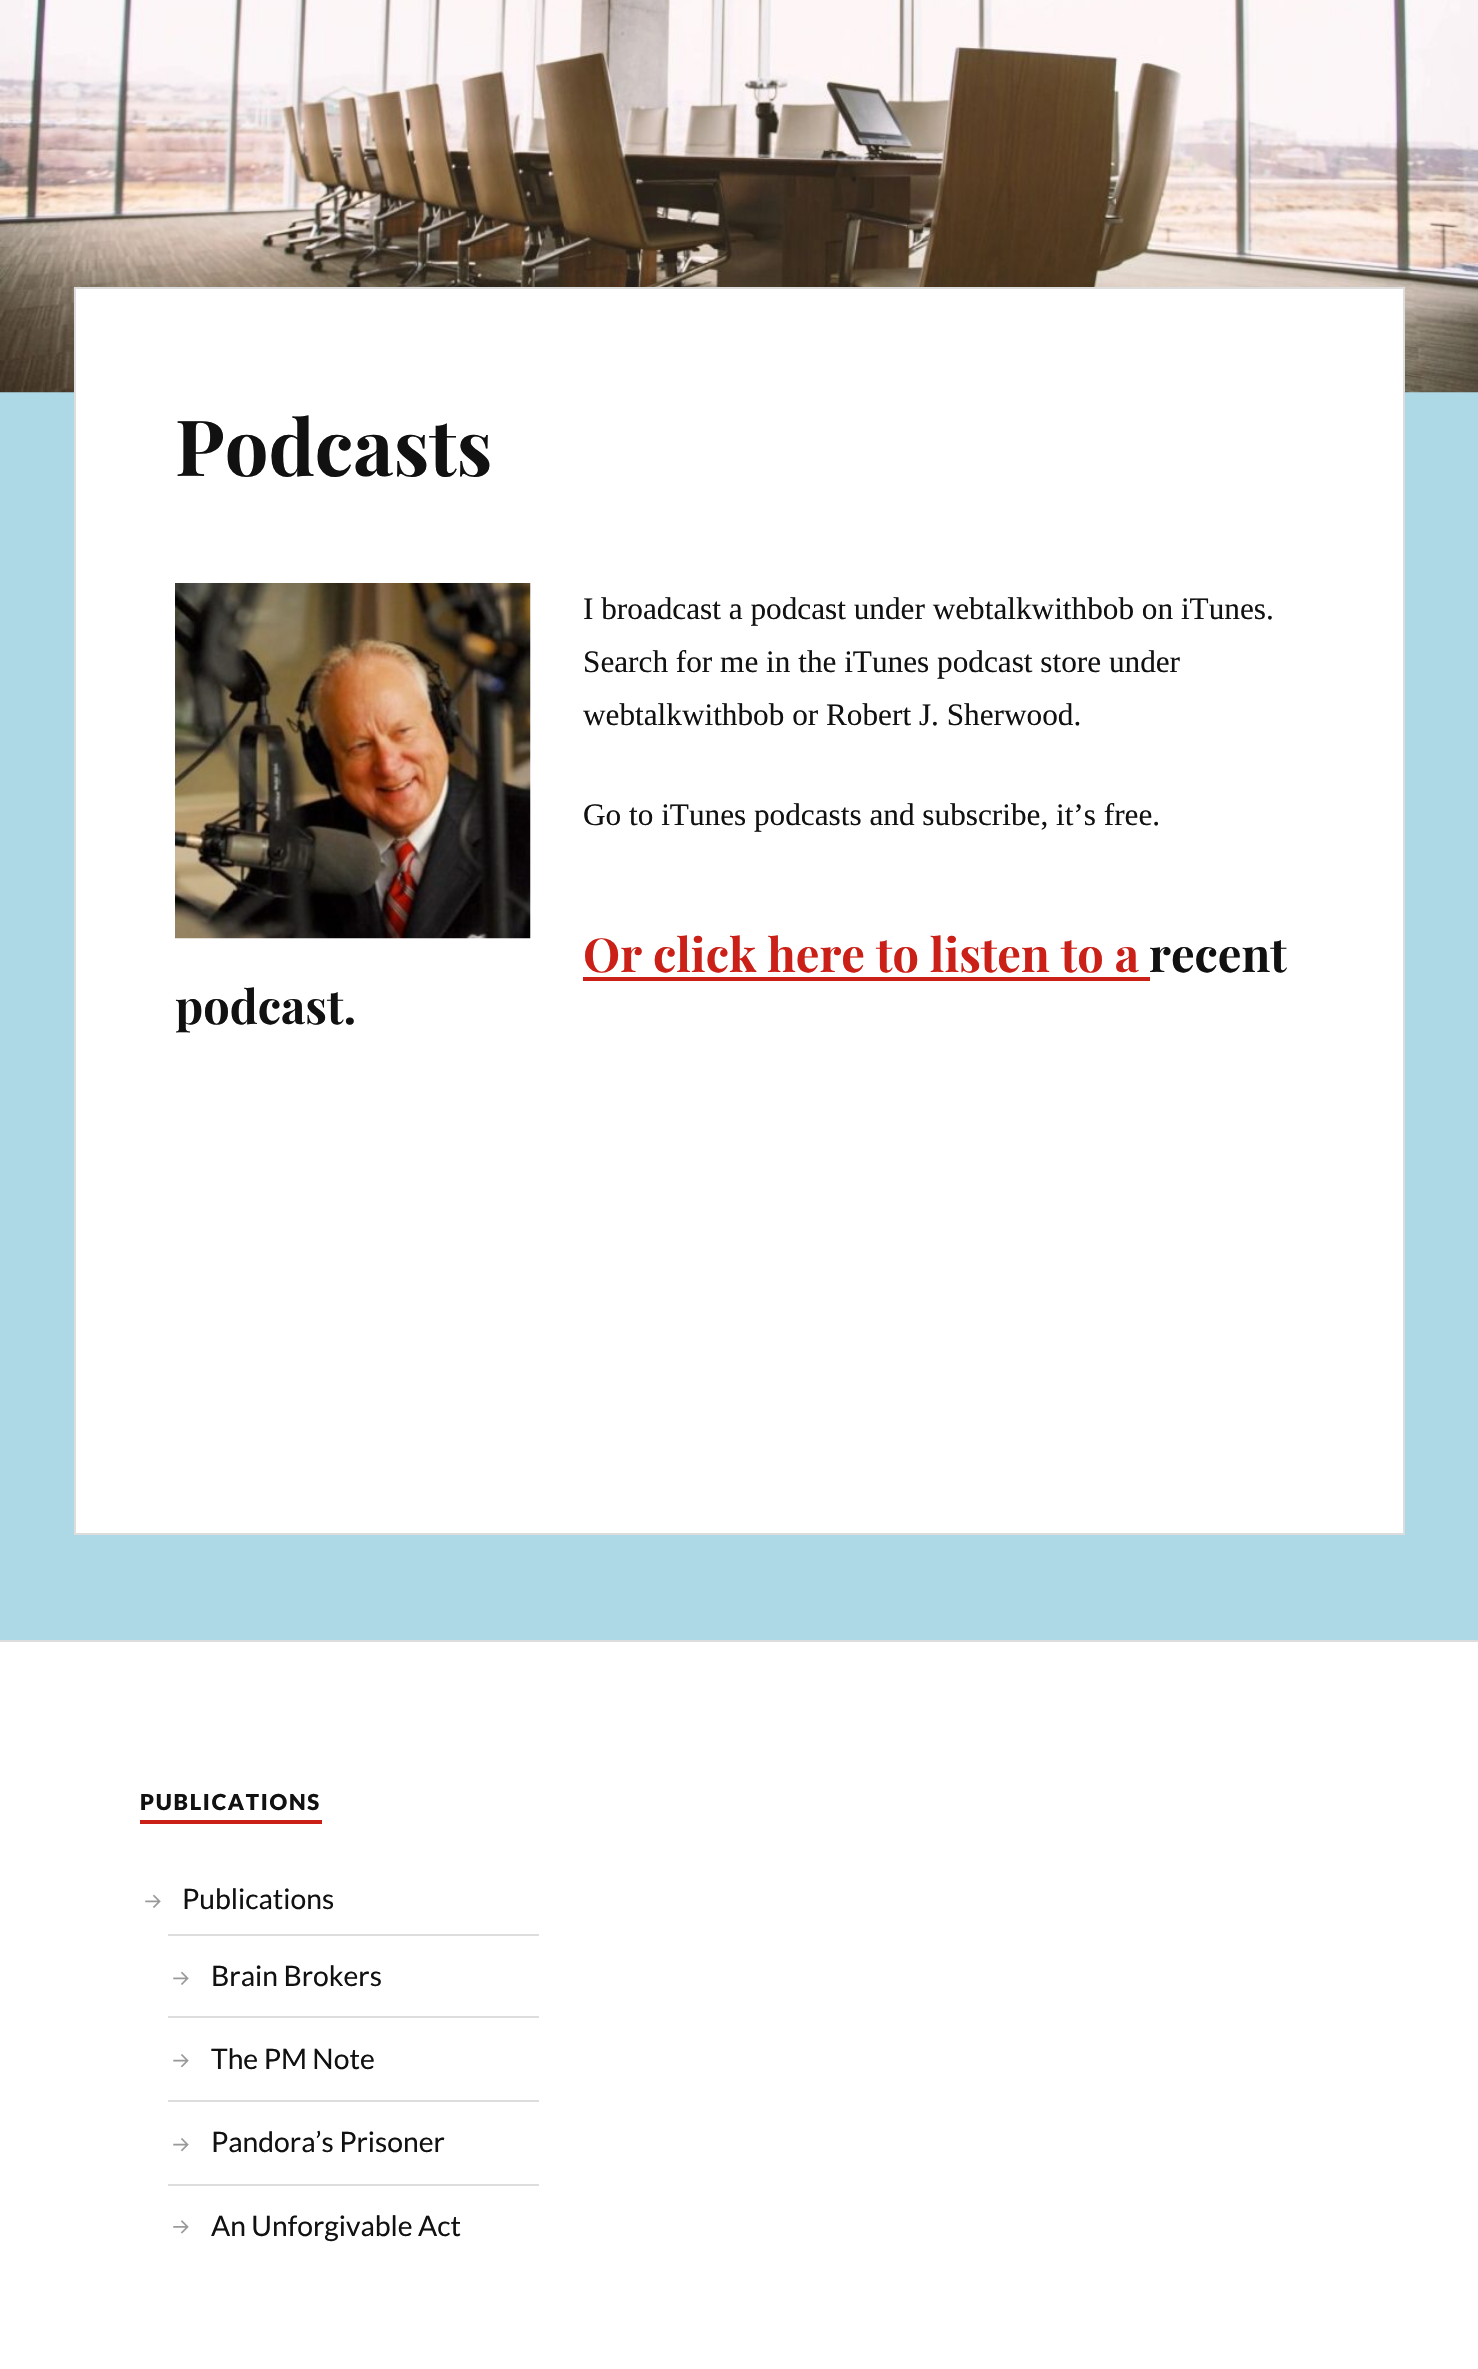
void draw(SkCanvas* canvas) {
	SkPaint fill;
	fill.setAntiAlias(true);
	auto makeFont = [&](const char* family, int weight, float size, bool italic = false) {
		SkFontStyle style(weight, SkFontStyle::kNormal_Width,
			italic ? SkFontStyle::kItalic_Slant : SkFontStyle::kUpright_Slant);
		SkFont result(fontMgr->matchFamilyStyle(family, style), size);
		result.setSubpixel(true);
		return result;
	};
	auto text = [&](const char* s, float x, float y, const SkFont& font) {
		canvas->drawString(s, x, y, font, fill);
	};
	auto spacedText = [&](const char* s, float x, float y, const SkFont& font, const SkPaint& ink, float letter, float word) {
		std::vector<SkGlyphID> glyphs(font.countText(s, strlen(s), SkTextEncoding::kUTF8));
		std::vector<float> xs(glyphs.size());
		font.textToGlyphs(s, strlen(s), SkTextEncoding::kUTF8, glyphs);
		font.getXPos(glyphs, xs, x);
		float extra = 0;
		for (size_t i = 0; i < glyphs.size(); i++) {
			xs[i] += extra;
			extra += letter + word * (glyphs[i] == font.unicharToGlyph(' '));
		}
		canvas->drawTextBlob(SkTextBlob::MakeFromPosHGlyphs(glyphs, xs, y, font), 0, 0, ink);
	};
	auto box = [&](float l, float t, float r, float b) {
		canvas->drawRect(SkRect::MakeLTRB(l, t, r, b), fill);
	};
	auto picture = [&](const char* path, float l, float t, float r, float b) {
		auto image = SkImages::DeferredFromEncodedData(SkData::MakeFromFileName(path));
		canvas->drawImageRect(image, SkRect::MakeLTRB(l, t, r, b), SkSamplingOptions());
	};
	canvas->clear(0xFFADD8E6);
	picture("image0.png", 0, 0, 1478, 393);
	fill.setColor(0xFFFFFFFF);
	canvas->drawRect(SkRect::MakeLTRB(75, 288, 1404, 1534), fill);
	fill.setStyle(SkPaint::kStroke_Style);
	fill.setStrokeWidth(2);
	fill.setColor(0xFFDDDDDD);
	canvas->drawRect(SkRect::MakeLTRB(75, 288, 1404, 1534), fill);
	picture("image1.png", 175, 583, 531, 939);
	fill.setStyle(SkPaint::kFill_Style);
	fill.setColor(0xFFCA2017);
	box(583, 977, 1150, 981);
	fill.setColor(0xFFFFFFFF);
	box(0, 1642, 1478, 2369);
	fill.setColor(0xFFDDDDDD);
	box(0, 1640, 1478, 1642);
	fill.setColor(0xFFCA2017);
	box(140, 1820, 322, 1824);
	picture("image2.png", 145, 1894, 161, 1908);
	fill.setColor(0xFFDDDDDD);
	box(168, 1934, 539, 1936);
	box(168, 2016, 539, 2018);
	picture("image2.png", 173, 1971, 189, 1985);
	box(168, 2100, 539, 2102);
	picture("image3.png", 173, 2054, 189, 2068);
	box(168, 2184, 539, 2186);
	picture("image3.png", 173, 2138, 189, 2152);
	picture("image4.png", 173, 2220, 189, 2234);
	auto font1 = makeFont("Playfair Display", 700, 77.5f);
	fill.setColor(0xFF111111);
	text("Podcasts", 175, 476, font1);
	auto font2 = makeFont("Liberation Serif", 400, 31.25f);
	text("I broadcast a podcast under webtalkwithbob on iTunes.", 583, 619, font2);
	text("Search for me in the iTunes podcast store under", 583, 672, font2);
	text("webtalkwithbob or Robert J. Sherwood.", 583, 725, font2);
	text("Go to iTunes podcasts and subscribe, it’s free.", 583, 825, font2);
	auto font3 = makeFont("Playfair Display", 700, 46.9f);
	fill.setColor(0xFFCA2017);
	text("Or click here to listen to a", 583, 972, font3);
	fill.setColor(0xFF111111);
	text("recent", 1149, 972, font3);
	text("podcast.", 175, 1024, font3);
	auto font4 = makeFont("Lato", 900, 22);
	spacedText("PUBLICATIONS", 140, 1810, font4, fill, 1.75f, 0);
	auto font5 = makeFont("Lato", 400, 28.25f);
	text("Publications", 182, 1909, font5);
	text("Brain Brokers", 211, 1986, font5);
	text("The PM Note", 211, 2069, font5);
	text("Pandora’s Prisoner", 211, 2152, font5);
	text("An Unforgivable Act", 211, 2236, font5);
}
